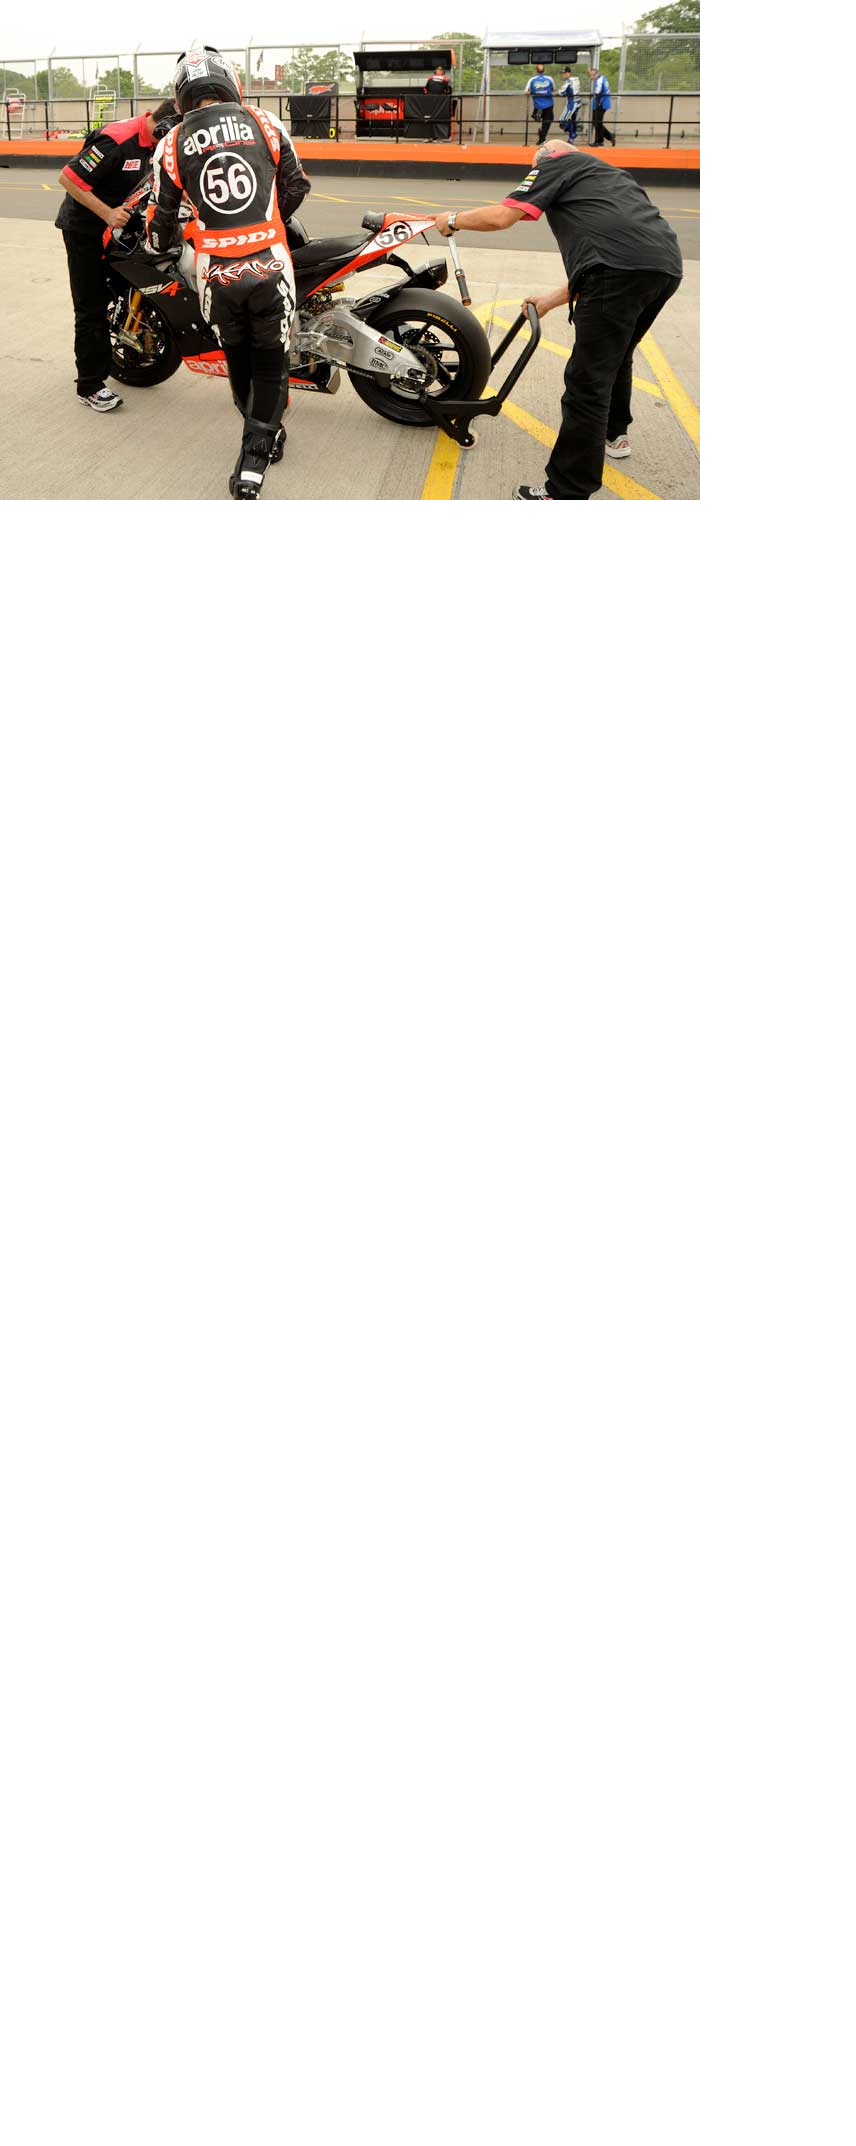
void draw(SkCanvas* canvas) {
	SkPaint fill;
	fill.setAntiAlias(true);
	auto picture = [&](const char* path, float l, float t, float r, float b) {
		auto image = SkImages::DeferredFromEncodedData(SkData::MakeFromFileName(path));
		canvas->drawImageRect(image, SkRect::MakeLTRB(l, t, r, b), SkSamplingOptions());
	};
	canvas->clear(0xFFFFFFFF);
	picture("image0.png", 0, 0, 700, 500);
}
